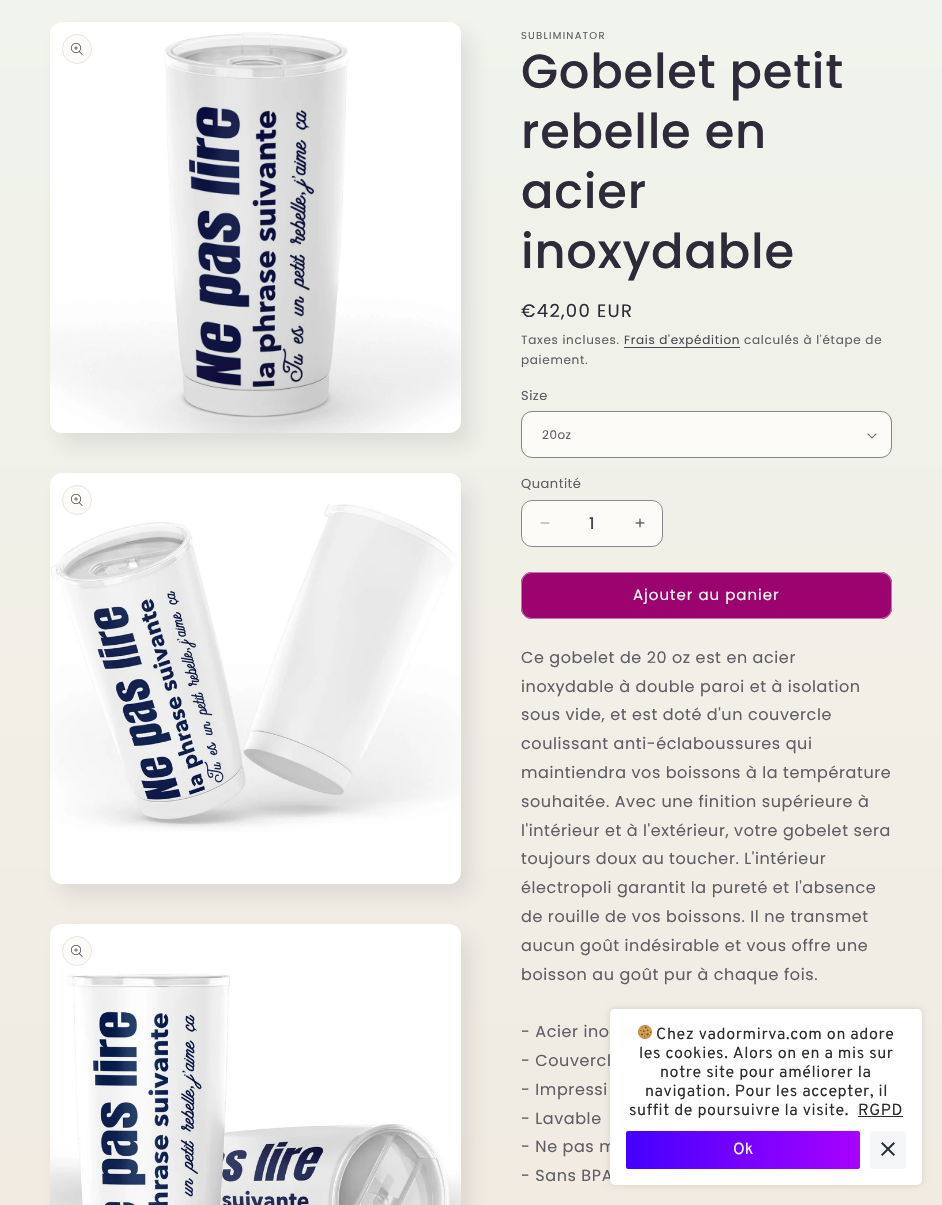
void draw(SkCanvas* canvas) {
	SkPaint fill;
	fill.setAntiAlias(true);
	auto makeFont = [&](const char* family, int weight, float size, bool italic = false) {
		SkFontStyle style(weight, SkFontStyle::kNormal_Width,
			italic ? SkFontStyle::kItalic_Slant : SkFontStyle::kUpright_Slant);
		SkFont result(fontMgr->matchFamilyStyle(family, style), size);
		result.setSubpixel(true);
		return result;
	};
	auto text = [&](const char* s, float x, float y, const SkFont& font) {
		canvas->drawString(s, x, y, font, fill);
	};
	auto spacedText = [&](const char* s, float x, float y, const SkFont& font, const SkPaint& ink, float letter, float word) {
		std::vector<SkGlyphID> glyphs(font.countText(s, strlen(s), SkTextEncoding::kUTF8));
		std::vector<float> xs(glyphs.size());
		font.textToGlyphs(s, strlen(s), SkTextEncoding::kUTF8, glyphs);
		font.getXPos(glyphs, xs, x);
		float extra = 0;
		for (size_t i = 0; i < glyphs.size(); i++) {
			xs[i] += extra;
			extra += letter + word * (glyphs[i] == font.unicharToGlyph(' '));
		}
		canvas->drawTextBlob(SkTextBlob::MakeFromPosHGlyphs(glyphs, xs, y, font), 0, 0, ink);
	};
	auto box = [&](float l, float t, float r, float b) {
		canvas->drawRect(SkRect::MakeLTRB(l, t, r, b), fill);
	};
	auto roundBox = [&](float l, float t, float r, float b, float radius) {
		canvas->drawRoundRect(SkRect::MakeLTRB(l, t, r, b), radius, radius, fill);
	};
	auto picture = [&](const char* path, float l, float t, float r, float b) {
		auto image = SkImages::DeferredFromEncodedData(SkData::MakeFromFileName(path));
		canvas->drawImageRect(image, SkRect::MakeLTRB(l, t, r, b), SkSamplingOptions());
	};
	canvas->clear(0xFFFFFFFF);
	{
		const SkColor colors[] = {0xFFF0F4EC, 0xFFF1EBE2};
		const float stops[] = {0, 1};
		const SkPoint ends[] = {{471, 0}, {471, 1205}};
		fill.setShader(SkGradientShader::MakeLinear(ends, colors, stops, 2, SkTileMode::kClamp));
		fill.setAlpha(255);
	}
	box(0, 0, 942, 1205);
	fill.setShader(nullptr);
	fill.setColor(0x1A2E2A39);
	fill.setMaskFilter(SkMaskFilter::MakeBlur(kNormal_SkBlurStyle, 10));
	canvas->drawRoundRect(SkRect::MakeLTRB(60, 34, 471, 445), 12, 12, fill);
	fill.setMaskFilter(nullptr);
	picture("image0.png", 50, 22, 461, 433);
	fill.setColor(0xFFFDFBF7);
	canvas->drawCircle(77, 49, 15, fill);
	fill.setStyle(SkPaint::kStroke_Style);
	fill.setStrokeWidth(1);
	fill.setColor(0x1A2E2A39);
	canvas->drawCircle(77, 49, 14.5f, fill);
	picture("image1.png", 71, 43, 83, 55);
	fill.setStyle(SkPaint::kFill_Style);
	fill.setMaskFilter(SkMaskFilter::MakeBlur(kNormal_SkBlurStyle, 10));
	canvas->drawRoundRect(SkRect::MakeLTRB(60, 485, 471, 896), 12, 12, fill);
	fill.setMaskFilter(nullptr);
	picture("image2.png", 50, 473, 461, 884);
	fill.setColor(0xFFFDFBF7);
	canvas->drawCircle(77, 500, 15, fill);
	fill.setStyle(SkPaint::kStroke_Style);
	fill.setColor(0x1A2E2A39);
	canvas->drawCircle(77, 500, 14.5f, fill);
	picture("image1.png", 71, 494, 83, 506);
	fill.setStyle(SkPaint::kFill_Style);
	fill.setMaskFilter(SkMaskFilter::MakeBlur(kNormal_SkBlurStyle, 10));
	canvas->drawRoundRect(SkRect::MakeLTRB(60, 936, 471, 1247), 12, 12, fill);
	fill.setMaskFilter(nullptr);
	picture("image3.png", 50, 924, 461, 1205);
	fill.setColor(0xFFFDFBF7);
	canvas->drawCircle(77, 951, 15, fill);
	fill.setStyle(SkPaint::kStroke_Style);
	fill.setColor(0x1A2E2A39);
	canvas->drawCircle(77, 951, 14.5f, fill);
	picture("image1.png", 71, 945, 83, 957);
	fill.setStyle(SkPaint::kFill_Style);
	fill.setColor(0xFF4B4853);
	box(624, 347, 740, 348);
	fill.setColor(0xFFFDFBF7);
	roundBox(522, 412, 891, 457, 10);
	picture("image4.png", 867, 433, 877, 439);
	fill.setStyle(SkPaint::kStroke_Style);
	fill.setColor(0x8C2E2A39);
	canvas->drawRoundRect(SkRect::MakeLTRB(521.5f, 411.5f, 891.5f, 457.5f), 10.5f, 10.5f, fill);
	fill.setStyle(SkPaint::kFill_Style);
	fill.setColor(0xFFFDFBF7);
	roundBox(521, 500, 663, 547, 11);
	picture("image5.png", 540, 522, 550, 524);
	picture("image6.png", 635, 518, 645, 528);
	fill.setStyle(SkPaint::kStroke_Style);
	fill.setColor(0x8C2E2A39);
	canvas->drawRoundRect(SkRect::MakeLTRB(521.5f, 500.5f, 662.5f, 546.5f), 10.5f, 10.5f, fill);
	fill.setStyle(SkPaint::kFill_Style);
	fill.setColor(0xFF9B046F);
	roundBox(521, 572, 892, 619, 11);
	fill.setStyle(SkPaint::kStroke_Style);
	canvas->drawRoundRect(SkRect::MakeLTRB(521.5f, 572.5f, 891.5f, 618.5f), 10.5f, 10.5f, fill);
	fill.setColor(0x73FDFBF7);
	canvas->drawRoundRect(SkRect::MakeLTRB(521.5f, 572.5f, 891.5f, 618.5f), 10.5f, 10.5f, fill);
	auto font1 = makeFont("Poppins", 400, 10);
	fill.setStyle(SkPaint::kFill_Style);
	fill.setColor(0xFF5F5D66);
	spacedText("SUBLIMINATOR", 521, 39, font1, fill, 1.25f, 0);
	auto font2 = makeFont("Poppins", 500, 48);
	fill.setColor(0xFF2E2A39);
	spacedText("Gobelet petit", 521, 88, font2, fill, 0.75f, 0);
	spacedText("rebelle en", 521, 148, font2, fill, 0.75f, 0);
	spacedText("acier", 521, 208, font2, fill, 0.75f, 0);
	spacedText("inoxydable", 521, 268, font2, fill, 0.75f, 0);
	auto font3 = makeFont("Poppins", 400, 18);
	spacedText("€42,00 EUR", 521, 317, font3, fill, 1.25f, 0);
	auto font4 = makeFont("Poppins", 400, 12);
	fill.setColor(0xFF5F5D66);
	spacedText("Taxes incluses.", 521, 344, font4, fill, 0.7f, 0);
	fill.setColor(0xFF4B4853);
	spacedText("Frais d'expédition", 624, 344, font4, fill, 0.7f, 0);
	fill.setColor(0xFF5F5D66);
	spacedText("calculés à l'étape de", 744, 344, font4, fill, 0.7f, 0);
	spacedText("paiement.", 521, 364, font4, fill, 0.7f, 0);
	auto font5 = makeFont("Poppins", 400, 13);
	spacedText("Size", 521, 400, font5, fill, 0.5f, 0);
	spacedText("20oz", 542, 439, font4, fill, 0.5f, 0);
	spacedText("Quantité", 521, 488, font5, fill, 0.5f, 0);
	auto font6 = makeFont("Poppins", 500, 16);
	fill.setColor(0xFF4B4853);
	text("1", 589, 529, font6);
	auto font7 = makeFont("Poppins", 400, 15);
	fill.setColor(0xFFFDFBF7);
	spacedText("Ajouter au panier", 633, 600, font7, fill, 1, 0);
	auto font8 = makeFont("Poppins", 400, 16);
	fill.setColor(0xFF5F5D66);
	spacedText("Ce gobelet de 20 oz est en acier", 521, 663, font8, fill, 0.6f, 0);
	spacedText("inoxydable à double paroi et à isolation", 521, 692, font8, fill, 0.6f, 0);
	spacedText("sous vide, et est doté d'un couvercle", 521, 720, font8, fill, 0.6f, 0);
	spacedText("coulissant anti-éclaboussures qui", 521, 749, font8, fill, 0.6f, 0);
	spacedText("maintiendra vos boissons à la température", 521, 778, font8, fill, 0.6f, 0);
	spacedText("souhaitée. Avec une finition supérieure à", 521, 807, font8, fill, 0.6f, 0);
	spacedText("l'intérieur et à l'extérieur, votre gobelet sera", 521, 836, font8, fill, 0.6f, 0);
	spacedText("toujours doux au toucher. L'intérieur", 521, 864, font8, fill, 0.6f, 0);
	spacedText("électropoli garantit la pureté et l'absence", 521, 893, font8, fill, 0.6f, 0);
	spacedText("de rouille de vos boissons. Il ne transmet", 521, 922, font8, fill, 0.6f, 0);
	spacedText("aucun goût indésirable et vous offre une", 521, 951, font8, fill, 0.6f, 0);
	spacedText("boisson au goût pur à chaque fois.", 521, 980, font8, fill, 0.6f, 0);
	spacedText("- Acier ino", 521, 1037, font8, fill, 0.6f, 0);
	spacedText("- Couvercl", 521, 1066, font8, fill, 0.6f, 0);
	spacedText("- Impressi", 521, 1095, font8, fill, 0.6f, 0);
	spacedText("- Lavable", 521, 1124, font8, fill, 0.6f, 0);
	spacedText("- Ne pas m", 521, 1152, font8, fill, 0.6f, 0);
	spacedText("- Sans BPA", 521, 1181, font8, fill, 0.6f, 0);
	fill.setColor(0xFFFFFFFF);
	roundBox(610, 1009, 922, 1185, 5);
	canvas->save();
	canvas->clipPath(SkPathBuilder(SkPathFillType::kEvenOdd).moveTo(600, 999).lineTo(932, 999).lineTo(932, 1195).lineTo(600, 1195).close().moveTo(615, 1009).lineTo(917, 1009).cubicTo(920, 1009, 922, 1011, 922, 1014).lineTo(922, 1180).cubicTo(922, 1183, 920, 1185, 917, 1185).lineTo(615, 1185).cubicTo(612, 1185, 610, 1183, 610, 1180).lineTo(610, 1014).cubicTo(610, 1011, 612, 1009, 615, 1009).close().detach(), true);
	fill.setColor(0x1F000000);
	fill.setMaskFilter(SkMaskFilter::MakeBlur(kNormal_SkBlurStyle, 3));
	canvas->drawRoundRect(SkRect::MakeLTRB(610, 1009, 922, 1185), 5, 5, fill);
	fill.setMaskFilter(nullptr);
	canvas->restore();
	picture("image7.png", 638, 1025, 652, 1039);
	auto font9 = makeFont("Overpass", 400, 16);
	fill.setColor(0xFF2D2D2D);
	spacedText("Chez vadormirva.com on adore", 656, 1039, font9, fill, 0.6f, 0);
	spacedText("les cookies. Alors on en a mis sur", 639, 1058, font9, fill, 0.6f, 0);
	spacedText("notre site pour améliorer la", 660, 1077, font9, fill, 0.6f, 0);
	spacedText("navigation. Pour les accepter, il", 645, 1096, font9, fill, 0.6f, 0);
	spacedText("suffit de poursuivre la visite.", 629, 1115, font9, fill, 0.6f, 0);
	spacedText("RGPD", 858, 1115, font9, fill, 0.6f, 0);
	box(858, 1116, 903, 1117);
	{
		const SkColor colors[] = {0xFF4401FF, 0xFFA901FF};
		const float stops[] = {0, 1};
		const SkPoint ends[] = {{626, 1150}, {860, 1150}};
		fill.setShader(SkGradientShader::MakeLinear(ends, colors, stops, 2, SkTileMode::kClamp));
		fill.setAlpha(255);
	}
	roundBox(626, 1131, 860, 1169, 2);
	fill.setShader(nullptr);
	fill.setColor(0xFFFFFFFF);
	text("Ok", 733, 1154, font9);
	fill.setColor(0xFFF4F6F8);
	roundBox(870, 1131, 906, 1169, 2);
	picture("image8.png", 881, 1142, 895, 1156);
}
